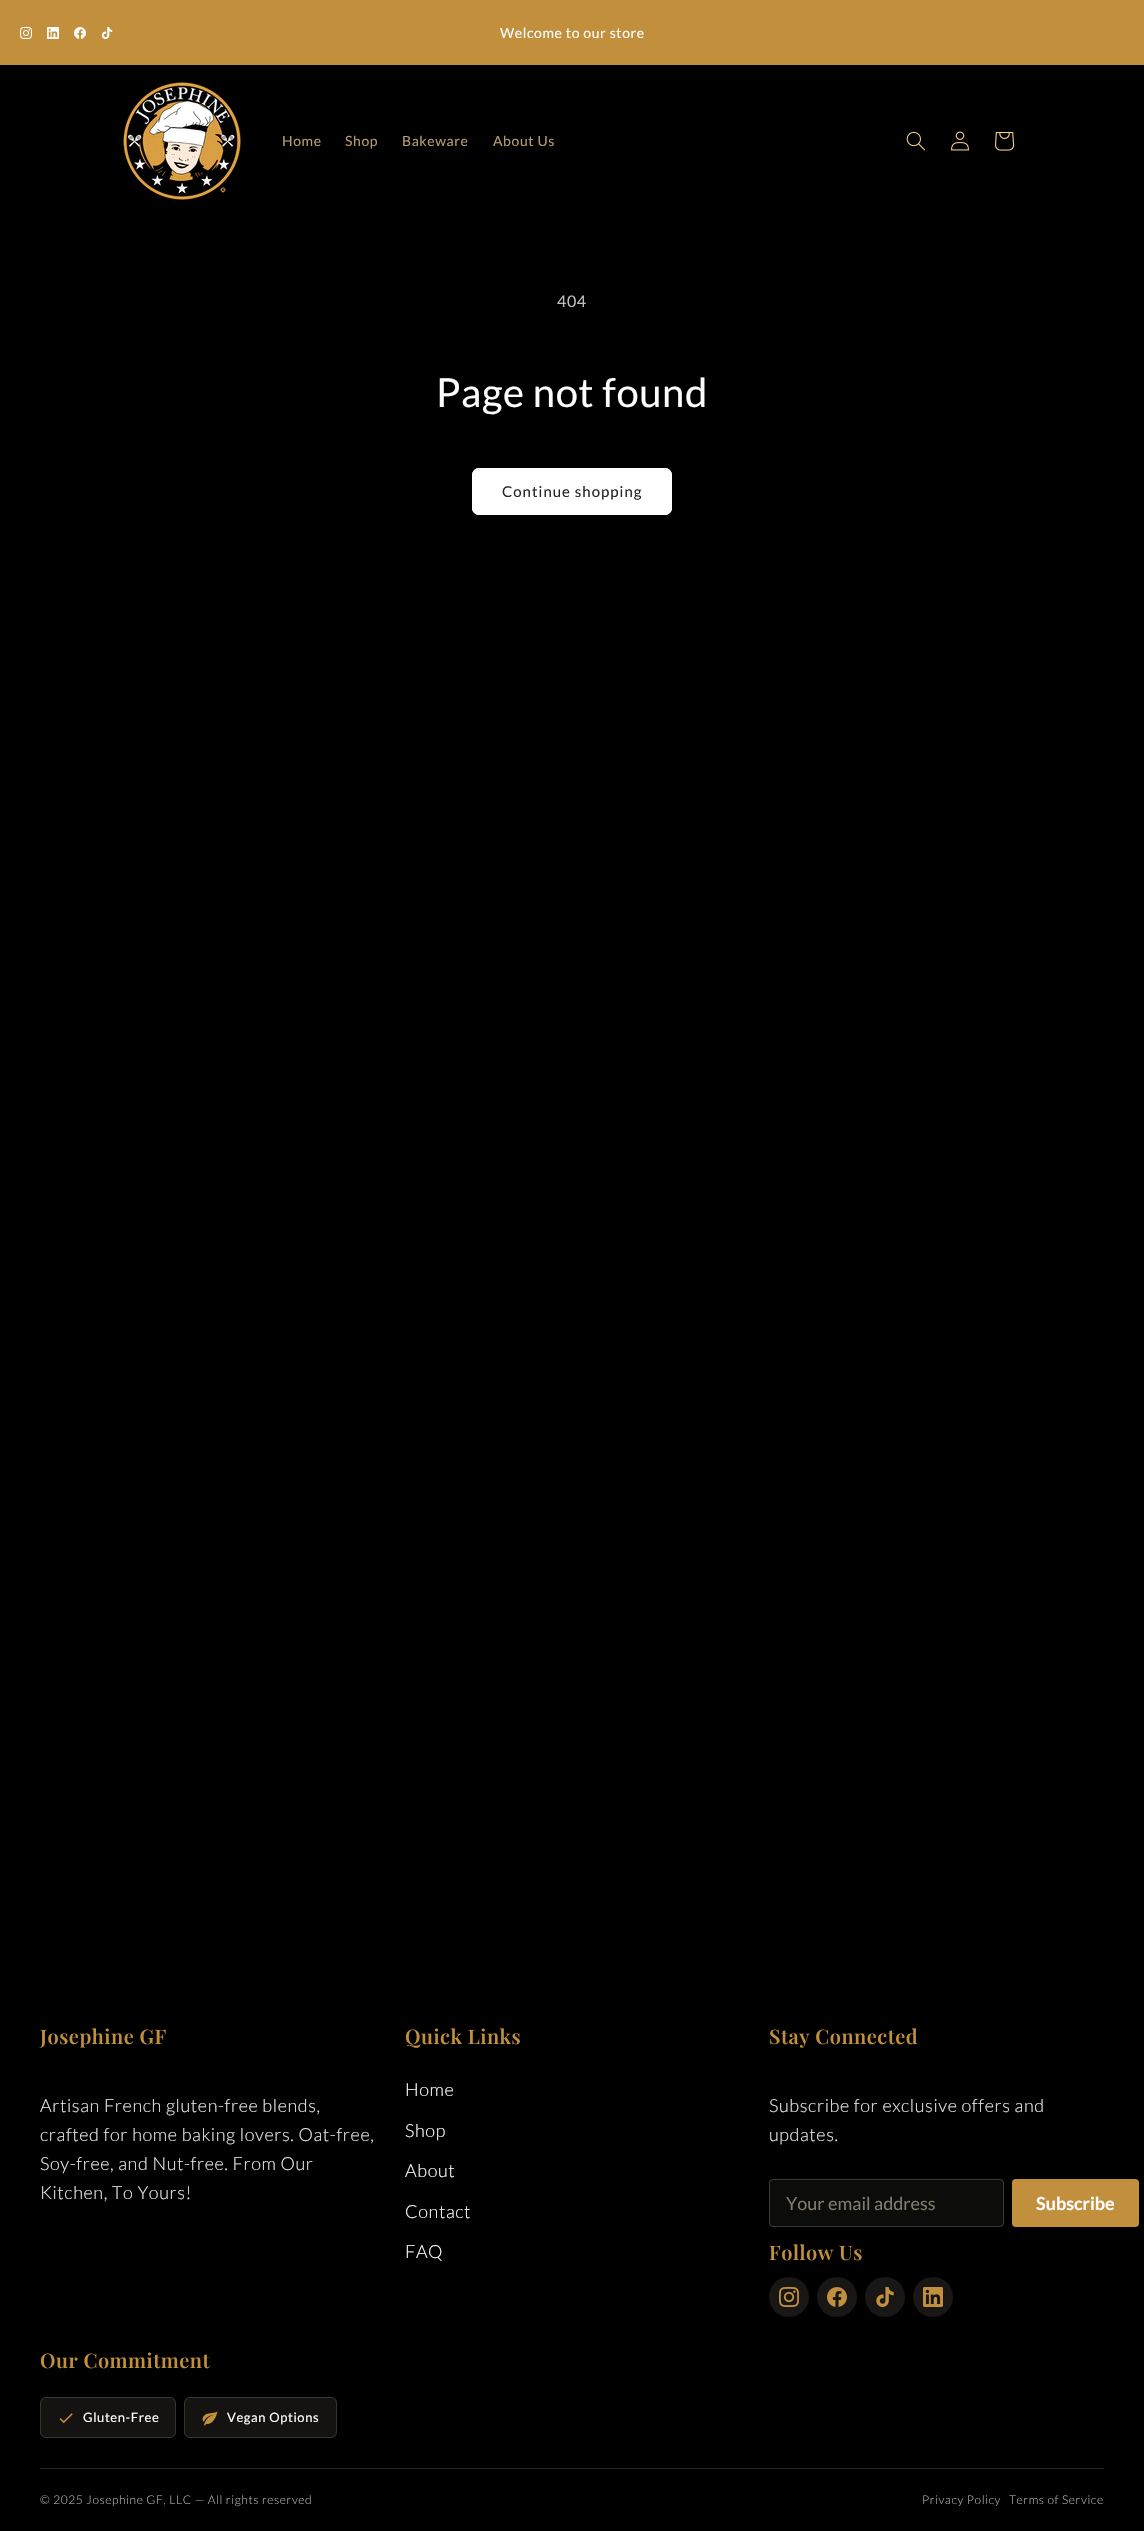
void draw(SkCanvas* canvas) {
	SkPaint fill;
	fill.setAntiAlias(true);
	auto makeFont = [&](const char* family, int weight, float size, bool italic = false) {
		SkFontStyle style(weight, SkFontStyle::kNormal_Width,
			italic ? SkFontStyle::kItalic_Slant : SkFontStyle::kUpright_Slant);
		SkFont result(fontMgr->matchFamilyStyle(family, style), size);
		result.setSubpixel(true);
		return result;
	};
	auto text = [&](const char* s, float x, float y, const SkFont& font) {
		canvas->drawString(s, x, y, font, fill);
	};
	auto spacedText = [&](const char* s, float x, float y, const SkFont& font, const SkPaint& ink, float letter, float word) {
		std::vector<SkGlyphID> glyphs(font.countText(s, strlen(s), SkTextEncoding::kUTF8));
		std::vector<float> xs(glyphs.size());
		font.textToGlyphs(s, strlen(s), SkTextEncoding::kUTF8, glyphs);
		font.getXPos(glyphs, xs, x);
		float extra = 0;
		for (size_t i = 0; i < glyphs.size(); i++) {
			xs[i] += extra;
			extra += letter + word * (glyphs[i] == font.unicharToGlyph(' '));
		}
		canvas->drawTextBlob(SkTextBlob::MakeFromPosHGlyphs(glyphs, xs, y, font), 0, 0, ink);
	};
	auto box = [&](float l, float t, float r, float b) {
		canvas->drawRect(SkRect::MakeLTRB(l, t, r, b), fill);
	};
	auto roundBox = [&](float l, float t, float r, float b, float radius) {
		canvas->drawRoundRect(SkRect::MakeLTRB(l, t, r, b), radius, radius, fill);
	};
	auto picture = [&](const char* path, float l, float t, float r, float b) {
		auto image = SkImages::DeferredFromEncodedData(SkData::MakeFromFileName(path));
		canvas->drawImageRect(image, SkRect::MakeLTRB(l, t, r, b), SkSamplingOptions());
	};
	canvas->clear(0xFF000000);
	fill.setColor(0xFFC28F3D);
	box(0, 0, 1144, 65);
	picture("image0.png", 20, 27, 32, 39);
	picture("image1.png", 47, 27, 59, 39);
	picture("image2.png", 74, 27, 86, 39);
	picture("image3.png", 101, 27, 113, 39);
	picture("image4.png", 123, 82, 241, 201);
	picture("image5.png", 906, 131, 925, 151);
	picture("image6.png", 951, 131, 969, 151);
	picture("image7.png", 995, 132, 1015, 151);
	fill.setColor(0xFFFFFFFF);
	roundBox(472, 468, 672, 515, 7);
	fill.setStyle(SkPaint::kStroke_Style);
	fill.setStrokeWidth(1);
	canvas->drawRoundRect(SkRect::MakeLTRB(472.5f, 468.5f, 671.5f, 514.5f), 6.5f, 6.5f, fill);
	fill.setStyle(SkPaint::kFill_Style);
	fill.setColor(0xFF25231F);
	box(40, 2468, 1104, 2469);
	fill.setColor(0xFF0C0C0A);
	roundBox(769, 2179, 1004, 2227, 4);
	fill.setStyle(SkPaint::kStroke_Style);
	fill.setColor(0x33F9EAD0);
	canvas->drawRoundRect(SkRect::MakeLTRB(769.5f, 2179.5f, 1003.5f, 2226.5f), 3.5f, 3.5f, fill);
	fill.setStyle(SkPaint::kFill_Style);
	fill.setColor(0xFFC28F3D);
	roundBox(1012, 2179, 1139, 2227, 4);
	fill.setColor(0xFF191715);
	canvas->drawCircle(789, 2297, 20, fill);
	picture("image8.png", 779, 2287, 799, 2307);
	canvas->drawCircle(837, 2297, 20, fill);
	picture("image9.png", 827, 2287, 847, 2307);
	canvas->drawCircle(885, 2297, 20, fill);
	picture("image10.png", 876, 2287, 894, 2307);
	canvas->drawCircle(933, 2297, 20, fill);
	picture("image11.png", 923, 2287, 943, 2307);
	fill.setColor(0xFF141311);
	roundBox(40, 2397, 176, 2438, 6);
	fill.setStyle(SkPaint::kStroke_Style);
	fill.setColor(0x26F9EAD0);
	canvas->drawRoundRect(SkRect::MakeLTRB(40.5f, 2397.5f, 175.5f, 2437.5f), 5.5f, 5.5f, fill);
	picture("image12.png", 59, 2413, 73, 2424);
	fill.setStyle(SkPaint::kFill_Style);
	fill.setColor(0xFF141311);
	roundBox(184, 2397, 337, 2438, 6);
	fill.setStyle(SkPaint::kStroke_Style);
	fill.setColor(0x26F9EAD0);
	canvas->drawRoundRect(SkRect::MakeLTRB(184.5f, 2397.5f, 336.5f, 2437.5f), 5.5f, 5.5f, fill);
	picture("image13.png", 202, 2411, 218, 2426);
	auto font1 = makeFont("Lato", 400, 14);
	fill.setStyle(SkPaint::kFill_Style);
	fill.setColor(0xFFFDFDFD);
	spacedText("Welcome to our store", 500, 38, font1, fill, 0.6f, 0);
	fill.setColor(0xFFB99C6E);
	spacedText("Home", 282, 146, font1, fill, 0.6f, 0);
	spacedText("Shop", 345, 146, font1, fill, 0.6f, 0);
	spacedText("Bakeware", 402, 146, font1, fill, 0.6f, 0);
	spacedText("About Us", 493, 146, font1, fill, 0.6f, 0);
	auto font2 = makeFont("Lato", 400, 16);
	fill.setColor(0xFFBEBEBE);
	spacedText("404", 557, 307, font2, fill, 0.6f, 0);
	auto font3 = makeFont("Lato", 400, 40);
	fill.setColor(0xFFFDFDFD);
	spacedText("Page not found", 436, 407, font3, fill, 0.6f, 0);
	auto font4 = makeFont("Lato", 400, 15);
	fill.setColor(0xFF262626);
	spacedText("Continue shopping", 502, 497, font4, fill, 1, 0);
	auto font5 = makeFont("Playfair Display", 600, 20);
	fill.setColor(0xFFC28F3D);
	spacedText("Josephine GF", 40, 2044, font5, fill, 0.5f, 0);
	auto font6 = makeFont("Lato", 300, 18);
	fill.setColor(0xFFE6E6E6);
	spacedText("Artisan French gluten-free blends,", 40, 2112, font6, fill, 0.6f, 0);
	spacedText("crafted for home baking lovers. Oat-free,", 40, 2141, font6, fill, 0.6f, 0);
	spacedText("Soy-free, and Nut-free. From Our", 40, 2170, font6, fill, 0.6f, 0);
	spacedText("Kitchen, To Yours!", 40, 2199, font6, fill, 0.6f, 0);
	fill.setColor(0xFFC28F3D);
	spacedText("Quick Links", 405, 2044, font5, fill, 0.5f, 0);
	fill.setColor(0xFFFDFDFD);
	spacedText("Home", 405, 2096, font6, fill, 0.6f, 0);
	spacedText("Shop", 405, 2137, font6, fill, 0.6f, 0);
	spacedText("About", 405, 2177, font6, fill, 0.6f, 0);
	spacedText("Contact", 405, 2218, font6, fill, 0.6f, 0);
	spacedText("FAQ", 405, 2258, font6, fill, 0.6f, 0);
	fill.setColor(0xFFC28F3D);
	spacedText("Stay Connected", 769, 2044, font5, fill, 0.5f, 0);
	fill.setColor(0xFFE6E6E6);
	spacedText("Subscribe for exclusive offers and", 769, 2112, font6, fill, 0.6f, 0);
	spacedText("updates.", 769, 2141, font6, fill, 0.6f, 0);
	auto font7 = makeFont("Lato", 400, 18);
	fill.setColor(0xFF837B6D);
	text("Your email address", 786, 2210, font7);
	auto font8 = makeFont("Lato", 700, 18);
	fill.setColor(0xFFFDFDFD);
	text("Subscribe", 1036, 2210, font8);
	fill.setColor(0xFFC28F3D);
	spacedText("Follow Us", 769, 2260, font5, fill, 0.5f, 0);
	spacedText("Our Commitment", 40, 2368, font5, fill, 0.5f, 0);
	auto font9 = makeFont("Lato", 400, 13);
	fill.setColor(0xFFFDFDFD);
	spacedText("Gluten-Free", 83, 2422, font9, fill, 0.6f, 0);
	spacedText("Vegan Options", 227, 2422, font9, fill, 0.6f, 0);
	auto font10 = makeFont("Lato", 300, 12);
	fill.setColor(0xFFB3B3B3);
	spacedText("© 2025 Josephine GF, LLC — All rights reserved", 40, 2504, font10, fill, 0.6f, 0);
	spacedText("Privacy Policy", 922, 2504, font10, fill, 0.6f, 0);
	spacedText("Terms of Service", 1009, 2504, font10, fill, 0.6f, 0);
}
